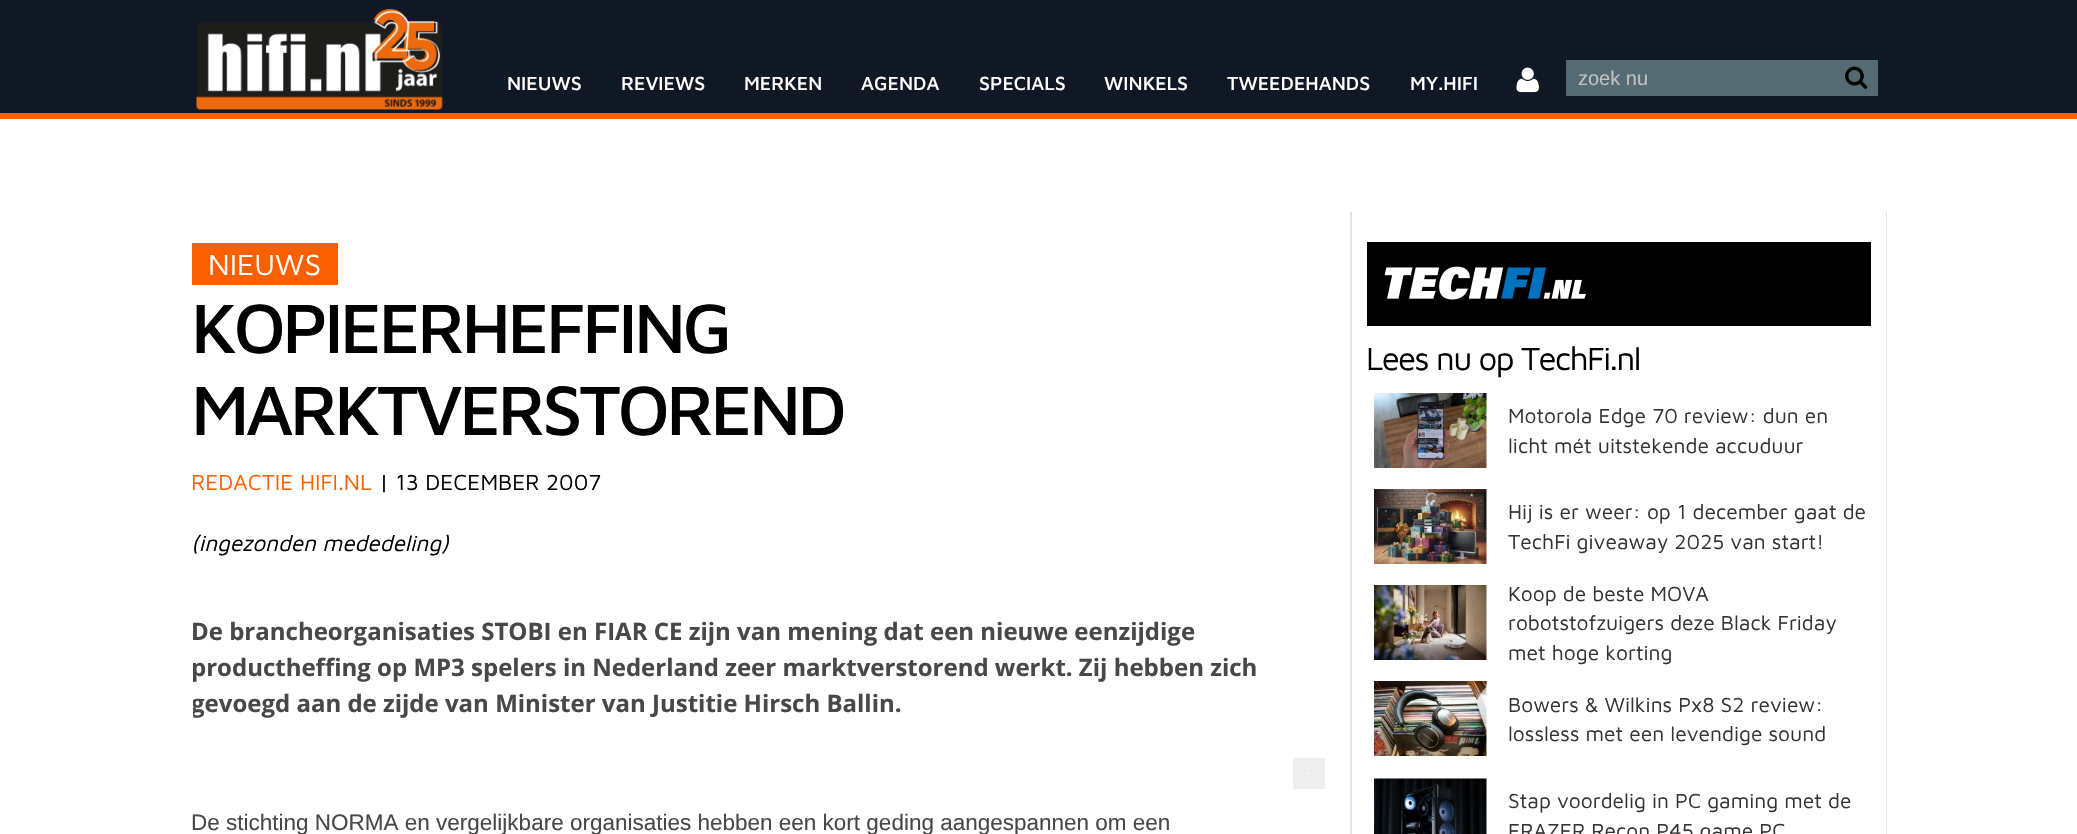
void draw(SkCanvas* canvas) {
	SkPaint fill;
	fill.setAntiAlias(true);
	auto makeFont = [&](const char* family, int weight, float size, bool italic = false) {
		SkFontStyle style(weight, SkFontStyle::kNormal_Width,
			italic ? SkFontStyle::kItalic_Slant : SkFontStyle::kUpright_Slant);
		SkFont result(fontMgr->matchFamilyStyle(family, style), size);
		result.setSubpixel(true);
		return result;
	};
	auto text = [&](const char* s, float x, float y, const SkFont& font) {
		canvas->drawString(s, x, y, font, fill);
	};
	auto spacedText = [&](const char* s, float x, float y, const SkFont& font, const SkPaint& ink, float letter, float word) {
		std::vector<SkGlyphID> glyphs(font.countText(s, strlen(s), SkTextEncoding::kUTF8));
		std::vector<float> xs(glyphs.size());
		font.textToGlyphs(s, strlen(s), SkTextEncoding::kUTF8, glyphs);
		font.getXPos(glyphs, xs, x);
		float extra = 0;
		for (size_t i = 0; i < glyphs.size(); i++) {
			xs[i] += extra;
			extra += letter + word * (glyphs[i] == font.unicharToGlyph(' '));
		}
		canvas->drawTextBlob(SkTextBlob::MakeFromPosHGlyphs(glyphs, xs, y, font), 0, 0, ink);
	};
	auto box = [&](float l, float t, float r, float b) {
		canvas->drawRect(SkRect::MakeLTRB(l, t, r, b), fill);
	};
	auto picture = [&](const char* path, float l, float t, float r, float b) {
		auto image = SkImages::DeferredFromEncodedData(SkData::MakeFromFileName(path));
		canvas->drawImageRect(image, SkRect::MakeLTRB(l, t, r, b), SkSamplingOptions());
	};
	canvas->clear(0xFFFFFFFF);
	fill.setColor(0xFF101825);
	box(0, 0, 2077, 113);
	fill.setColor(0xFFFA6000);
	box(0, 113, 2077, 119);
	picture("image0.png", 196, 9, 443, 110);
	picture("image1.png", 1516, 67, 1539, 93);
	fill.setColor(0xFF546B73);
	box(1566, 60, 1878, 96);
	picture("image2.png", 1845, 66, 1868, 89);
	fill.setColor(0xFFE1E1E8);
	box(1350, 212, 1352, 834);
	fill.setStyle(SkPaint::kStroke_Style);
	fill.setStrokeWidth(15);
	fill.setColor(0xFFEEEEEE);
	canvas->drawRect(SkRect::MakeLTRB(1300.5f, 765.5f, 1317.5f, 781.5f), fill);
	picture("image3.png", 1308, 772, 1310, 773);
	fill.setStyle(SkPaint::kFill_Style);
	fill.setColor(0xFFE1E1E8);
	box(1886, 212, 1887, 834);
	auto font1 = makeFont("Maven Pro", 500, 19.5f);
	fill.setColor(0xFFFFFFFF);
	text("NIEUWS", 507, 90, font1);
	text("REVIEWS", 621, 90, font1);
	text("MERKEN", 744, 90, font1);
	text("AGENDA", 861, 90, font1);
	text("SPECIALS", 979, 90, font1);
	text("WINKELS", 1104, 90, font1);
	text("TWEEDEHANDS", 1227, 90, font1);
	text("MY.HIFI", 1410, 90, font1);
	auto font2 = makeFont("Liberation Sans", 400, 20);
	fill.setColor(0xFFC0C0C0);
	text("zoek nu", 1578, 85, font2);
	auto font3 = makeFont("Maven Pro", 500, 72);
	fill.setColor(0xFF000000);
	spacedText("KOPIEERHEFFING", 191, 353, font3, fill, -3.6f, 0);
	spacedText("MARKTVERSTOREND", 191, 435, font3, fill, -3.6f, 0);
	auto font4 = makeFont("Maven Pro", 400, 22.5f);
	fill.setColor(0xFFFA6000);
	text("REDACTIE HIFI.NL", 191, 490, font4);
	fill.setColor(0xFF000000);
	text("| 13 DECEMBER 2007", 379, 490, font4);
	auto font5 = makeFont("Maven Pro", 400, 22.5f, true);
	text("(ingezonden mededeling)", 191, 551, font5);
	auto font6 = makeFont("Open Sans", 700, 24);
	fill.setColor(0xFF484848);
	text("De brancheorganisaties STOBI en FIAR CE zijn van mening dat een nieuwe eenzijdige", 191, 640, font6);
	text("productheffing op MP3 spelers in Nederland zeer marktverstorend werkt. Zij hebben zich", 191, 676, font6);
	text("gevoegd aan de zijde van Minister van Justitie Hirsch Ballin.", 191, 712, font6);
	fill.setStyle(SkPaint::kStroke_Style);
	fill.setStrokeWidth(11);
	fill.setColor(0xFFFFFFFF);
	canvas->drawRect(SkRect::MakeLTRB(187.5f, 206.5f, 1892.5f, 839.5f), fill);
	fill.setStyle(SkPaint::kFill_Style);
	fill.setColor(0xFFFA6000);
	box(192, 243, 338, 285);
	auto font7 = makeFont("Maven Pro", 400, 30);
	fill.setColor(0xFFFFFFFF);
	text("NIEUWS", 208, 275, font7);
	auto font8 = makeFont("Liberation Sans", 400, 22.5f);
	fill.setColor(0xFF484848);
	text("De stichting NORMA en vergelijkbare organisaties hebben een kort geding aangespannen om een", 191, 830, font8);
	fill.setColor(0xFF000000);
	box(1367, 242, 1871, 326);
	picture("image4.png", 1384, 266, 1586, 300);
	auto font9 = makeFont("Maven Pro", 400, 33);
	spacedText("Lees nu op TechFi.nl", 1366, 370, font9, fill, -1.6f, 0);
	picture("image5.png", 1374, 393, 1487, 468);
	auto font10 = makeFont("Maven Pro", 400, 21);
	fill.setColor(0xFF333333);
	text("Motorola Edge 70 review: dun en", 1508, 423, font10);
	text("licht mét uitstekende accuduur", 1508, 453, font10);
	picture("image6.png", 1374, 489, 1487, 564);
	text("Hij is er weer: op 1 december gaat de", 1508, 519, font10);
	text("TechFi giveaway 2025 van start!", 1508, 549, font10);
	picture("image7.png", 1374, 585, 1487, 660);
	text("Koop de beste MOVA", 1508, 601, font10);
	text("robotstofzuigers deze Black Friday", 1508, 630, font10);
	text("met hoge korting", 1508, 660, font10);
	picture("image8.png", 1374, 681, 1487, 756);
	text("Bowers & Wilkins Px8 S2 review:", 1508, 712, font10);
	text("lossless met een levendige sound", 1508, 741, font10);
	picture("image9.png", 1374, 778, 1487, 834);
	text("Stap voordelig in PC gaming met de", 1508, 808, font10);
	text("ERAZER Recon P45 game PC", 1508, 838, font10);
}
